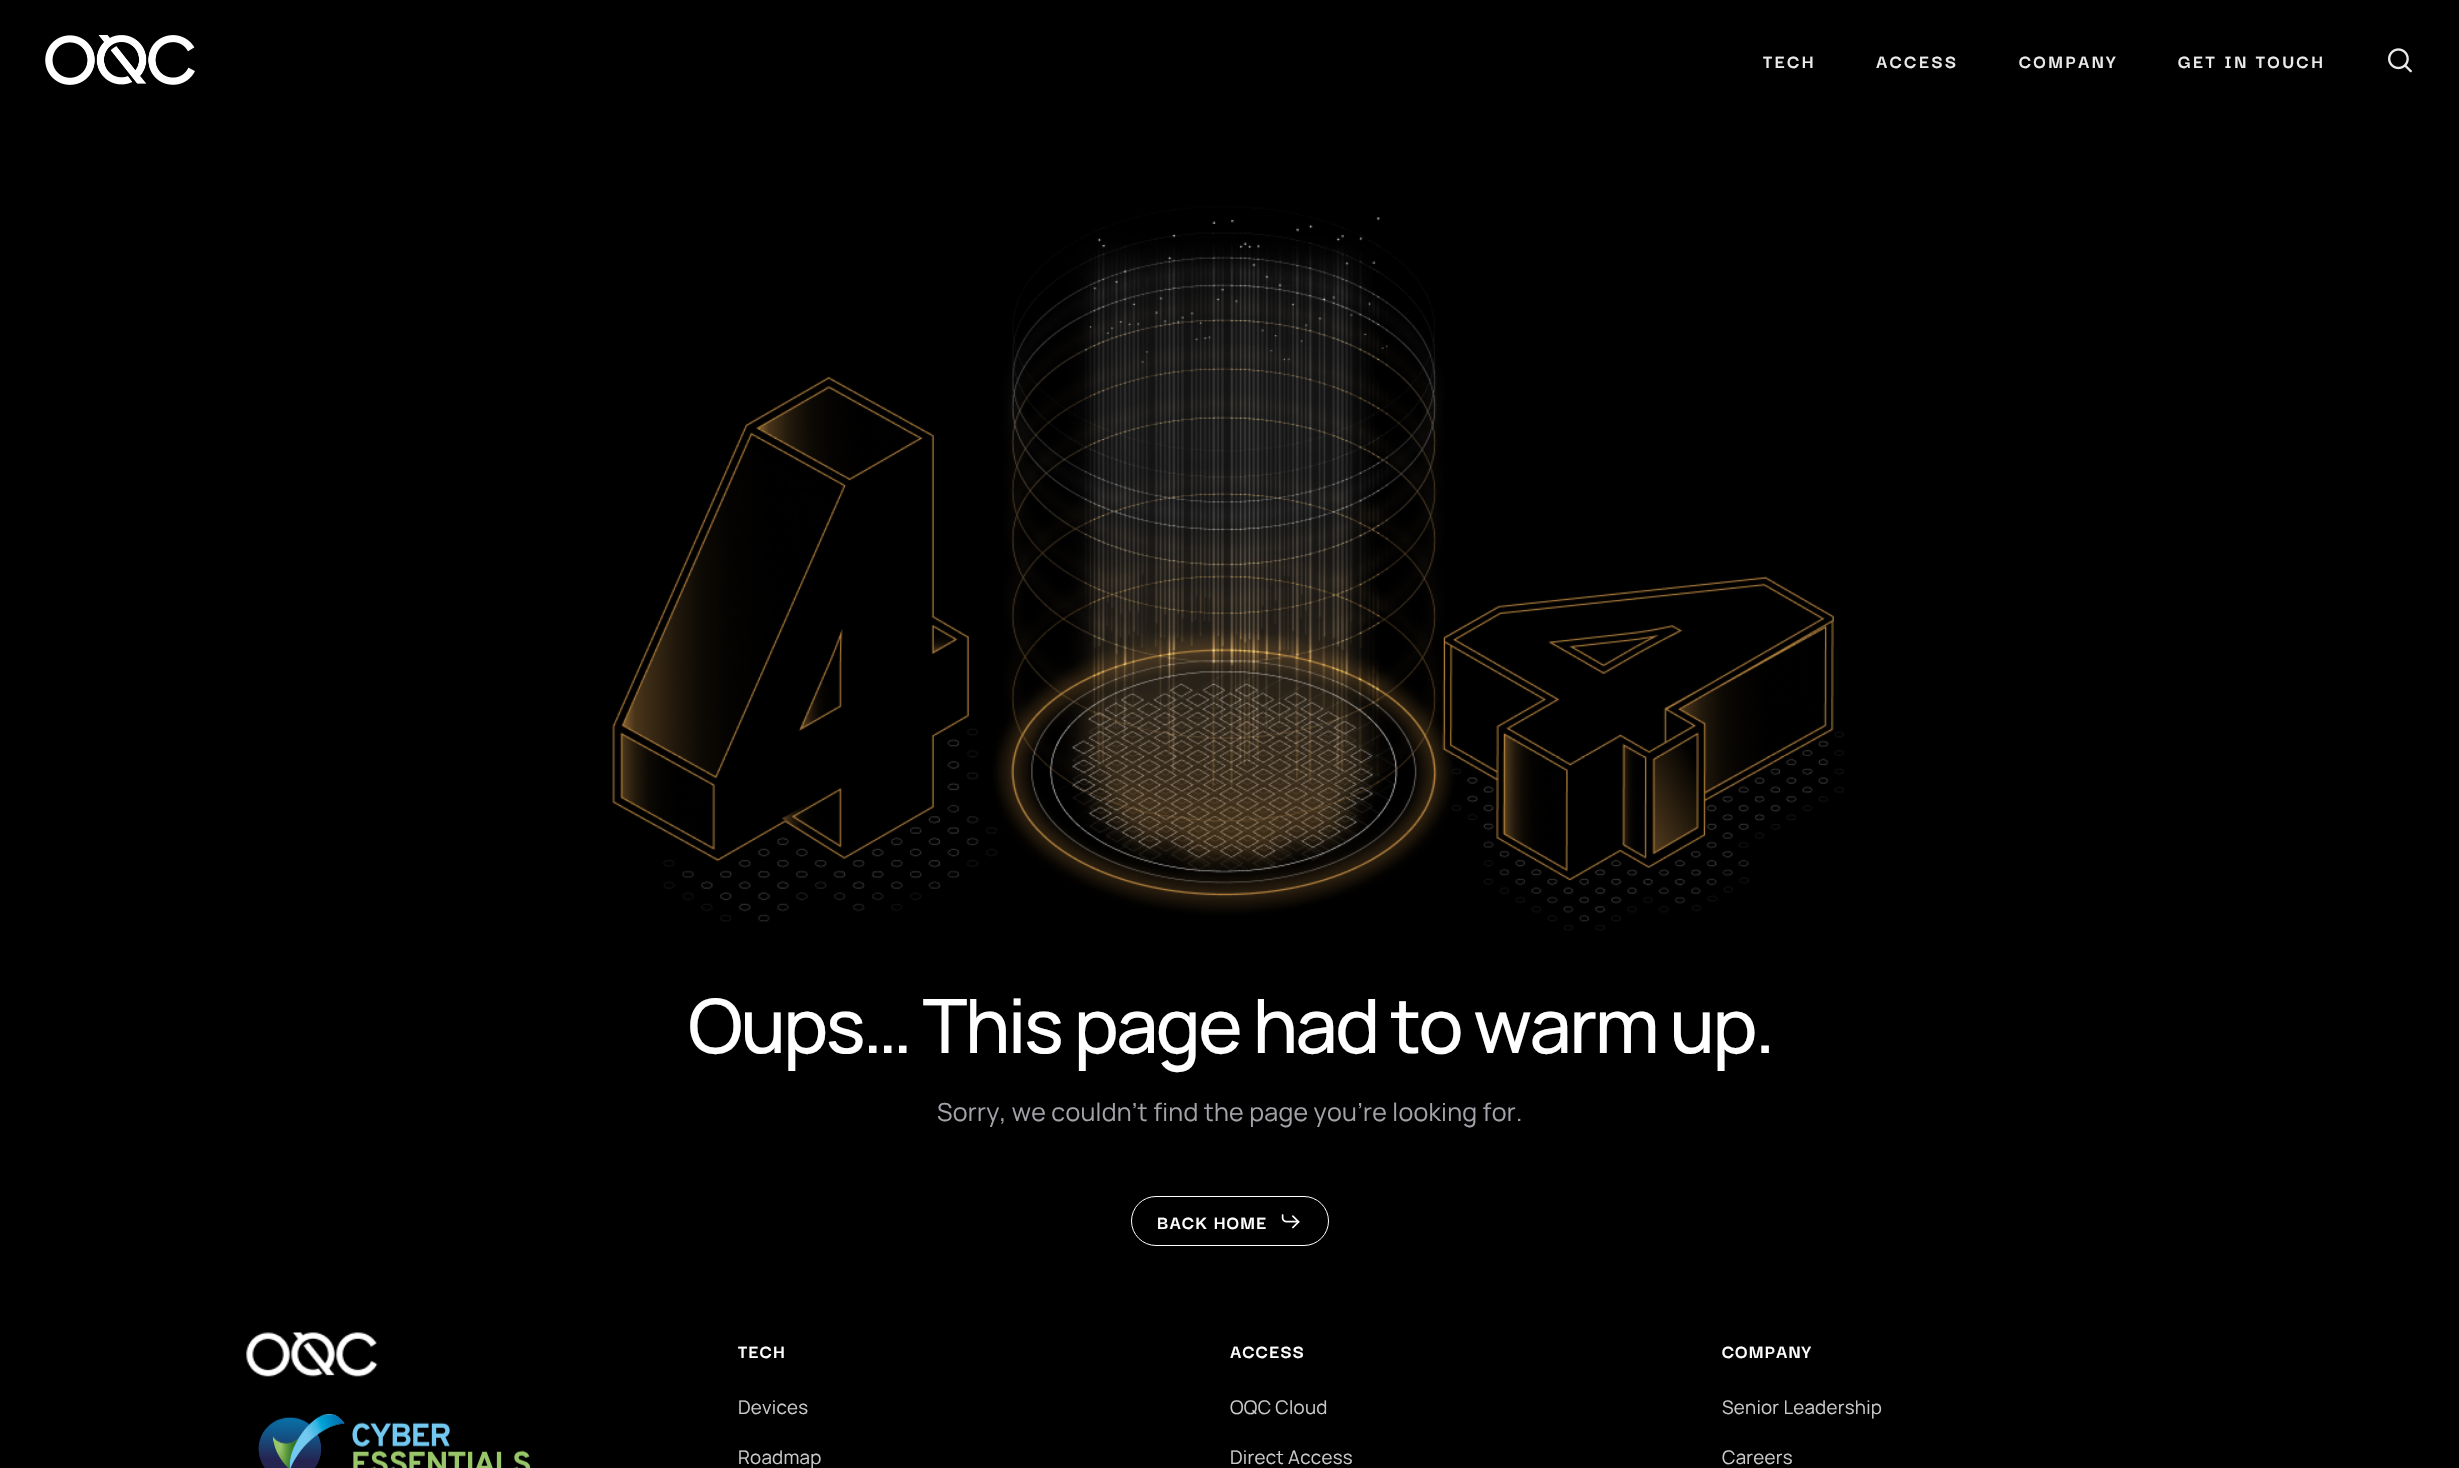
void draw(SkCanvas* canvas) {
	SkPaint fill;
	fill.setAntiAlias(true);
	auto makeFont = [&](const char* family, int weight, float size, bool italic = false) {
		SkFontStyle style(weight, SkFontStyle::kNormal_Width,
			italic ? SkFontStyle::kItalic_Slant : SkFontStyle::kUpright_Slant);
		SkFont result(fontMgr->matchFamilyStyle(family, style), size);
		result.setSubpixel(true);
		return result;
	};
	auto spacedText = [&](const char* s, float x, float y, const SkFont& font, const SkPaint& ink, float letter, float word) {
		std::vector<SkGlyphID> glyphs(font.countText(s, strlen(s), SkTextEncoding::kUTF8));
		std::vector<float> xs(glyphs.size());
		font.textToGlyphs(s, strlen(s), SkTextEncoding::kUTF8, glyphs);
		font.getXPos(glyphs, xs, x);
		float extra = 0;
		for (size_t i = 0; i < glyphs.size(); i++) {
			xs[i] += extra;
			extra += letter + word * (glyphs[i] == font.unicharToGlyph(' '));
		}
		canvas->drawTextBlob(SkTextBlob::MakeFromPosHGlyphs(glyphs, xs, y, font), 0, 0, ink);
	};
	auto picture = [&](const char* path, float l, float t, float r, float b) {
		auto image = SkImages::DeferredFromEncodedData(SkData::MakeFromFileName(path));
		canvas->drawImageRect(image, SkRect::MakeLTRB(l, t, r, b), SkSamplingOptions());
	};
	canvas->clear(0xFF000000);
	picture("image0.png", 45, 35, 195, 85);
	picture("image1.png", 2388, 48, 2412, 73);
	picture("image2.png", 612, 206, 1844, 931);
	fill.setStyle(SkPaint::kStroke_Style);
	fill.setStrokeWidth(1);
	fill.setColor(0xFFFFFFFF);
	canvas->drawRoundRect(SkRect::MakeLTRB(1131.5f, 1196.5f, 1328.5f, 1245.5f), 24.5f, 24.5f, fill);
	picture("image3.png", 1281, 1214, 1300, 1229);
	picture("image4.png", 246, 1332, 378, 1377);
	picture("image5.png", 258, 1414, 531, 1468);
	auto font1 = makeFont("Darker Grotesque", 300, 20);
	fill.setStyle(SkPaint::kFill_Style);
	fill.setColor(0xFFEAEAEA);
	spacedText("TECH", 1763, 68, font1, fill, 2.5f, 0);
	spacedText("ACCESS", 1876, 68, font1, fill, 2.5f, 0);
	spacedText("COMPANY", 2019, 68, font1, fill, 2.5f, 0);
	spacedText("GET IN TOUCH", 2178, 68, font1, fill, 2.5f, 0);
	auto font2 = makeFont("Manrope", 500, 75);
	fill.setColor(0xFFFFFFFF);
	spacedText("Oups… This page had to warm up.", 688, 1053, font2, fill, -2.5f, 0);
	auto font3 = makeFont("Manrope", 400, 25);
	fill.setColor(0xFFA2A2A9);
	spacedText("Sorry, we couldn’t find the page you’re looking for.", 937, 1121, font3, fill, 0.25f, 0);
	fill.setColor(0xFFFFFFFF);
	spacedText("BACK HOME", 1157, 1229, font1, fill, 1.25f, 0);
	spacedText("TECH", 738, 1358, font1, fill, 1.25f, 0);
	auto font4 = makeFont("Manrope", 400, 18.75f);
	fill.setColor(0xFFCACACA);
	spacedText("Devices", 738, 1414, font4, fill, 0.25f, 0);
	spacedText("Roadmap", 738, 1464, font4, fill, 0.25f, 0);
	fill.setColor(0xFFFFFFFF);
	spacedText("ACCESS", 1230, 1358, font1, fill, 1.25f, 0);
	fill.setColor(0xFFCACACA);
	spacedText("OQC Cloud", 1230, 1414, font4, fill, 0.25f, 0);
	spacedText("Direct Access", 1230, 1464, font4, fill, 0.25f, 0);
	fill.setColor(0xFFFFFFFF);
	spacedText("COMPANY", 1722, 1358, font1, fill, 1.25f, 0);
	fill.setColor(0xFFCACACA);
	spacedText("Senior Leadership", 1722, 1414, font4, fill, 0.25f, 0);
	spacedText("Careers", 1722, 1464, font4, fill, 0.25f, 0);
}
